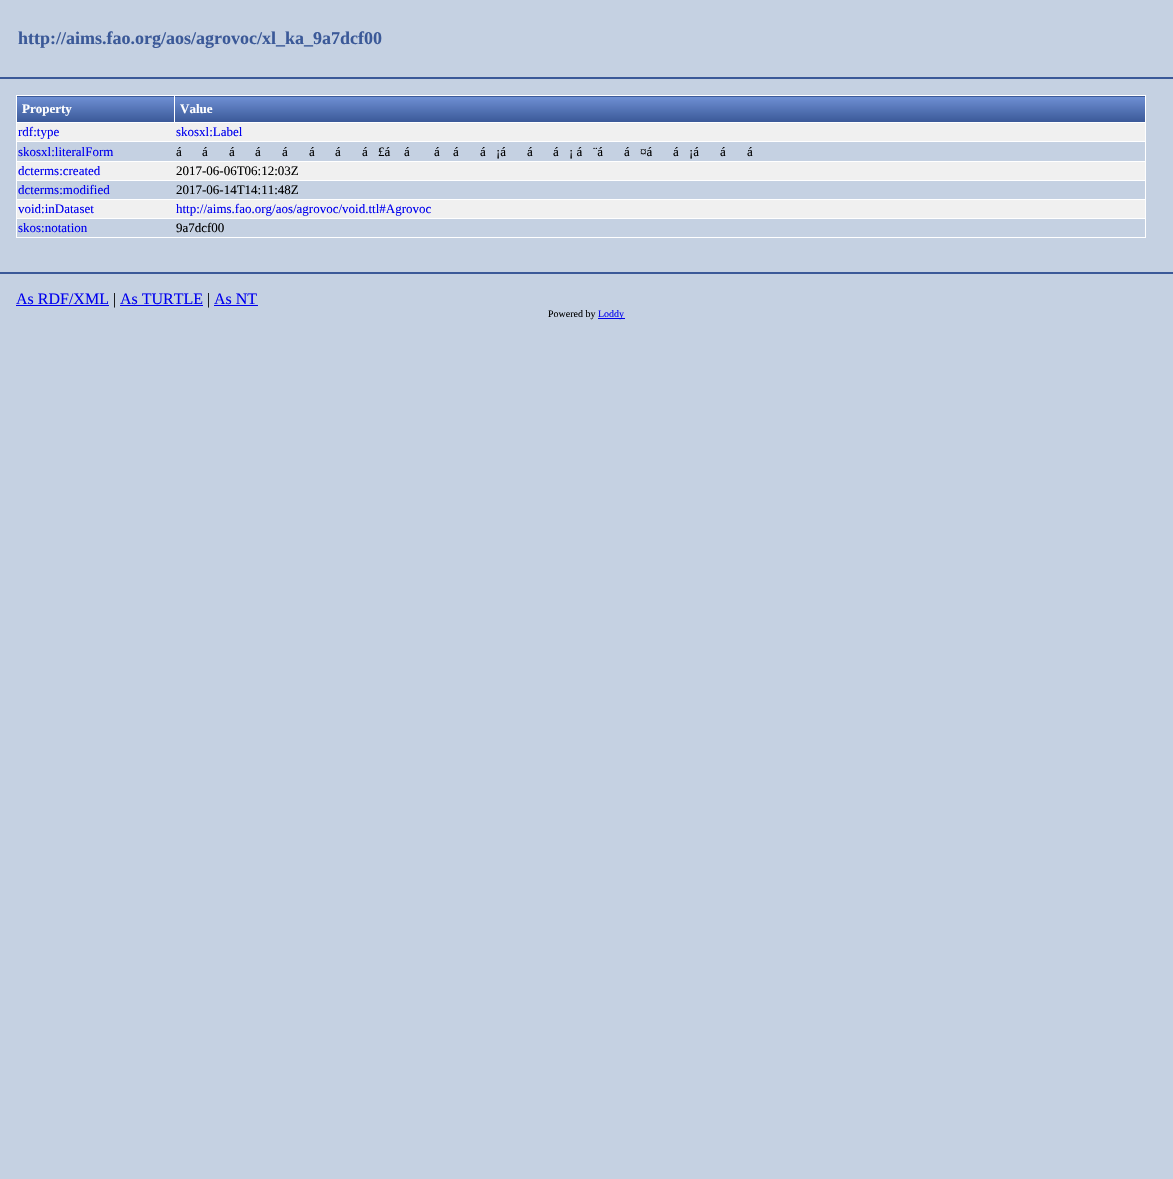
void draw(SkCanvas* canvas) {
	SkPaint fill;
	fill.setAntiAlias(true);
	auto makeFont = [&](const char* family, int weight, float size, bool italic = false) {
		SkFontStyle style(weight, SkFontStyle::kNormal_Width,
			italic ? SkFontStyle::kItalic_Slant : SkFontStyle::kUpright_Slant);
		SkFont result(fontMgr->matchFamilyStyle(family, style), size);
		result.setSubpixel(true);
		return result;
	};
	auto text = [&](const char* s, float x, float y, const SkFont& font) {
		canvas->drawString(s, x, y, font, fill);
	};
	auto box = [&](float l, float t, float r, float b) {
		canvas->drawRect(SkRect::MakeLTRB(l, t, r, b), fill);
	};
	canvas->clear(0xFFC5D1E2);
	fill.setColor(0xFF3B5998);
	box(0, 77, 1173, 79);
	fill.setColor(0xFFFFFFFF);
	box(16, 95, 1146, 96);
	box(1145, 95, 1146, 238);
	box(16, 237, 1146, 238);
	box(16, 95, 17, 238);
	{
		const SkColor colors[] = {0xFF6E8FD3, 0xFF3B5998};
		const float stops[] = {0, 1};
		const SkPoint ends[] = {{96, 72}, {96, 97}};
		fill.setShader(SkGradientShader::MakeLinear(ends, colors, stops, 2, SkTileMode::kClamp));
		fill.setAlpha(255);
	}
	box(17, 96, 175, 97);
	{
		const SkColor colors[] = {0xFF6E8FD3, 0xFF3B5998};
		const float stops[] = {0, 1};
		const SkPoint ends[] = {{96, 97}, {96, 122}};
		fill.setShader(SkGradientShader::MakeLinear(ends, colors, stops, 2, SkTileMode::kClamp));
		fill.setAlpha(255);
	}
	box(17, 97, 174, 122);
	{
		const SkColor colors[] = {0xFF6E8FD3, 0xFF3B5998};
		const float stops[] = {0, 1};
		const SkPoint ends[] = {{660, 72}, {660, 97}};
		fill.setShader(SkGradientShader::MakeLinear(ends, colors, stops, 2, SkTileMode::kClamp));
		fill.setAlpha(255);
	}
	box(175, 96, 1145, 97);
	{
		const SkColor colors[] = {0xFF6E8FD3, 0xFF3B5998};
		const float stops[] = {0, 1};
		const SkPoint ends[] = {{660, 97}, {660, 122}};
		fill.setShader(SkGradientShader::MakeLinear(ends, colors, stops, 2, SkTileMode::kClamp));
		fill.setAlpha(255);
	}
	box(175, 97, 1145, 122);
	fill.setShader(nullptr);
	fill.setColor(0xFFFFFFFF);
	box(16, 122, 1146, 123);
	box(174, 95, 175, 123);
	fill.setColor(0xFFF0F0F0);
	box(17, 123, 1145, 141);
	fill.setColor(0xFFFFFFFF);
	box(16, 141, 1146, 142);
	fill.setColor(0xFFF0F0F0);
	box(17, 162, 1145, 180);
	fill.setColor(0xFFFFFFFF);
	box(16, 161, 1146, 162);
	box(16, 180, 1146, 181);
	fill.setColor(0xFFF0F0F0);
	box(17, 200, 1145, 218);
	fill.setColor(0xFFFFFFFF);
	box(16, 199, 1146, 200);
	box(16, 218, 1146, 219);
	fill.setColor(0xFF3B5998);
	box(0, 272, 1173, 274);
	fill.setColor(0xFF0000EE);
	box(16, 305, 109, 306);
	box(120, 305, 203, 306);
	box(214, 305, 258, 306);
	box(598, 318, 625, 319);
	auto font1 = makeFont("Liberation Serif", 700, 18);
	fill.setColor(0xFF3B5998);
	text("http://aims.fao.org/aos/agrovoc/xl_ka_9a7dcf00", 18, 44, font1);
	auto font2 = makeFont("Liberation Serif", 700, 13);
	fill.setColor(0xFFFFFFFF);
	text("Property", 22, 113, font2);
	text("Value", 180, 113, font2);
	auto font3 = makeFont("Liberation Serif", 400, 13);
	fill.setColor(0xFF0000EE);
	text("rdf:type", 18, 136, font3);
	text("skosxl:Label", 176, 136, font3);
	text("skosxl:literalForm", 18, 156, font3);
	fill.setColor(0xFF000000);
	text("á", 176, 156, font3);
	text("á", 202, 156, font3);
	text("á", 229, 156, font3);
	text("á", 255, 156, font3);
	text("á", 282, 156, font3);
	text("á", 309, 156, font3);
	text("á", 335, 156, font3);
	text("á", 362, 156, font3);
	text("£á", 378, 156, font3);
	text("á", 404, 156, font3);
	text("á", 434, 156, font3);
	text("á", 453, 156, font3);
	text("á", 480, 156, font3);
	text("¡á", 496, 156, font3);
	text("á", 527, 156, font3);
	text("á", 553, 156, font3);
	text("¡ á", 569, 156, font3);
	text("¨á", 593, 156, font3);
	text("á", 624, 156, font3);
	text("¤á", 640, 156, font3);
	text("á", 673, 156, font3);
	text("¡á", 689, 156, font3);
	text("á", 720, 156, font3);
	text("á", 747, 156, font3);
	fill.setColor(0xFF0000EE);
	text("dcterms:created", 18, 175, font3);
	fill.setColor(0xFF000000);
	text("2017-06-06T06:12:03Z", 176, 175, font3);
	fill.setColor(0xFF0000EE);
	text("dcterms:modified", 18, 194, font3);
	fill.setColor(0xFF000000);
	text("2017-06-14T14:11:48Z", 176, 194, font3);
	fill.setColor(0xFF0000EE);
	text("void:inDataset", 18, 213, font3);
	text("http://aims.fao.org/aos/agrovoc/void.ttl#Agrovoc", 176, 213, font3);
	text("skos:notation", 18, 232, font3);
	fill.setColor(0xFF000000);
	text("9a7dcf00", 176, 232, font3);
	auto font4 = makeFont("Liberation Serif", 400, 16);
	fill.setColor(0xFF0000EE);
	text("As RDF/XML", 16, 304, font4);
	fill.setColor(0xFF000000);
	text("|", 113, 304, font4);
	fill.setColor(0xFF0000EE);
	text("As TURTLE", 120, 304, font4);
	fill.setColor(0xFF000000);
	text("|", 207, 304, font4);
	fill.setColor(0xFF0000EE);
	text("As NT", 214, 304, font4);
	auto font5 = makeFont("Liberation Serif", 400, 10);
	fill.setColor(0xFF000000);
	text("Powered by", 548, 317, font5);
	fill.setColor(0xFF0000EE);
	text("Loddy", 598, 317, font5);
}
